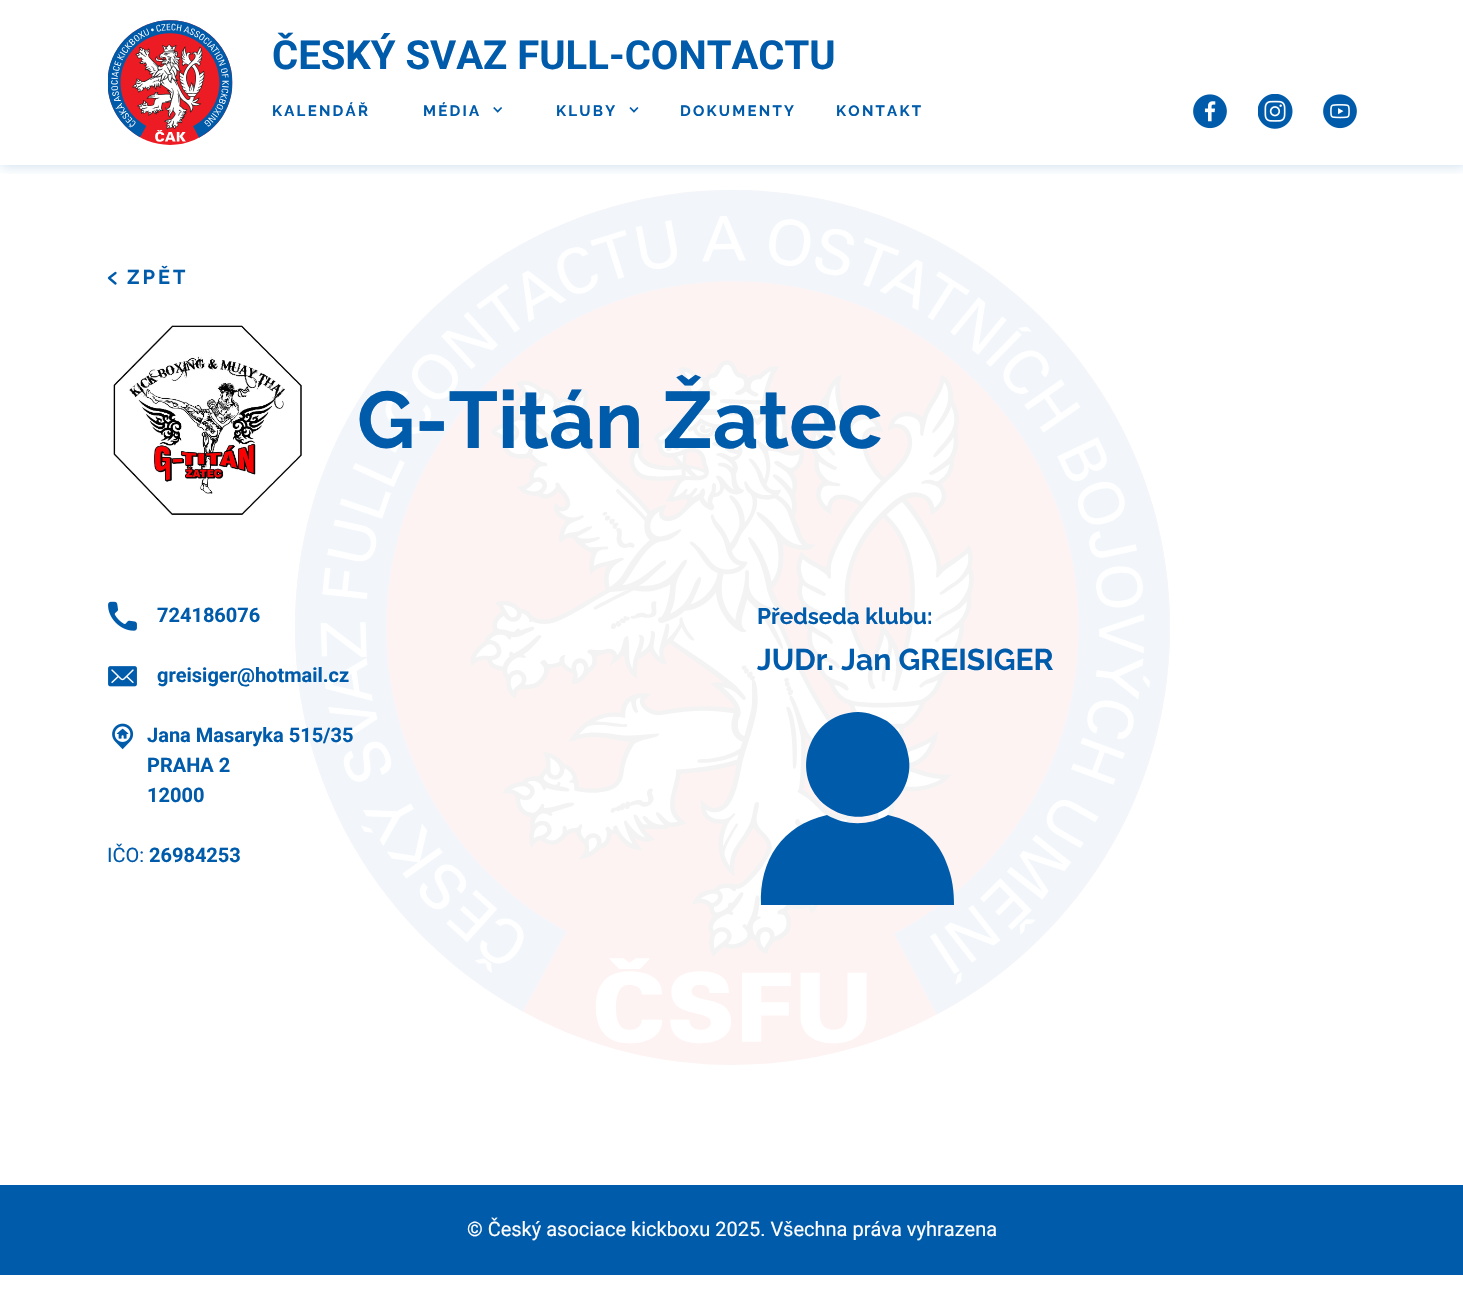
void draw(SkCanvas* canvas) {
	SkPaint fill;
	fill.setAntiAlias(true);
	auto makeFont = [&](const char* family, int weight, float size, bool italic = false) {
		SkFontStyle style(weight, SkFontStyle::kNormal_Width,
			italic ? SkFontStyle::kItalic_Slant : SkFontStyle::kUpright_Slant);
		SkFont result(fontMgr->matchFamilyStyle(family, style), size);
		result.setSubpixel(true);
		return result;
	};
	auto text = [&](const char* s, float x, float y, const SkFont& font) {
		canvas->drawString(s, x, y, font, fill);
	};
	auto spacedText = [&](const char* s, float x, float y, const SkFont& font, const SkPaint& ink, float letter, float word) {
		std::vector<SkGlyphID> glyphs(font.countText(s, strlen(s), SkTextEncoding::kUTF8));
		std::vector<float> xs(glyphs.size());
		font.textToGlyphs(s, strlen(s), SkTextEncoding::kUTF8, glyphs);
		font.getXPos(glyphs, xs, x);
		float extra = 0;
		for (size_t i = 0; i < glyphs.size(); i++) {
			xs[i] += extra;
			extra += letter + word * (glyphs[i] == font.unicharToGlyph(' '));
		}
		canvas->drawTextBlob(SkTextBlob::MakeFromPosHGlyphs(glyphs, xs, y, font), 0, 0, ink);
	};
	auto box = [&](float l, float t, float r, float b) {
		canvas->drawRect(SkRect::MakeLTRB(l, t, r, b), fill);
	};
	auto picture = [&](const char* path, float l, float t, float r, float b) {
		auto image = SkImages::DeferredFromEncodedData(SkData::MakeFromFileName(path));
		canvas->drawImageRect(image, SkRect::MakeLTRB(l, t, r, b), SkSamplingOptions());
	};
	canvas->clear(0xFFFFFFFF);
	canvas->save();
	canvas->clipRect(SkRect::MakeLTRB(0, 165, 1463, 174));
	fill.setColor(0x33005BAB);
	fill.setMaskFilter(SkMaskFilter::MakeBlur(kNormal_SkBlurStyle, 6));
	canvas->drawRect(SkRect::MakeLTRB(1, 1, 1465, 166), fill);
	fill.setMaskFilter(nullptr);
	canvas->restore();
	picture("image0.png", 108, 20, 233, 145);
	picture("image1.png", 493, 107, 503, 113);
	picture("image2.png", 629, 107, 639, 113);
	picture("image3.png", 1193, 94, 1227, 129);
	picture("image4.png", 1258, 94, 1293, 129);
	picture("image5.png", 1323, 94, 1357, 129);
	fill.setStyle(SkPaint::kStroke_Style);
	fill.setStrokeWidth(2.3f);
	fill.setStrokeCap(SkPaint::kRound_Cap);
	fill.setStrokeJoin(SkPaint::kRound_Join);
	fill.setColor(0xFF005BAB);
	canvas->drawPath(SkPathBuilder().moveTo(115.5f, 283.5f).lineTo(109, 278).lineTo(115.5f, 273).detach(), fill);
	picture("image6.png", 295, 190, 1170, 1065);
	picture("image7.png", 113, 325, 302, 515);
	picture("image8.png", 108, 601, 137, 631);
	picture("image9.png", 108, 666, 137, 687);
	picture("image10.png", 112, 723, 134, 750);
	fill.setStyle(SkPaint::kFill_Style);
	canvas->drawPath(SkPathBuilder().moveTo(831, 809).cubicTo(856, 824, 888, 817, 903, 790).cubicTo(909, 779, 911, 766, 908, 754).cubicTo(906, 741, 898, 729, 887, 721).cubicTo(878, 716, 868, 712, 858, 712).cubicTo(805, 713, 787, 782, 831, 809).close().detach(), fill);
	canvas->drawPath(SkPathBuilder().moveTo(948, 867).cubicTo(939, 839, 918, 822, 888, 815).cubicTo(869, 826, 846, 826, 827, 815).cubicTo(782, 825, 759, 861, 761, 905).lineTo(954, 905).cubicTo(954, 899, 954, 883, 948, 867).close().detach(), fill);
	box(0, 1185, 1463, 1275);
	auto font1 = makeFont("Roboto", 700, 40);
	text("ČESKÝ SVAZ FULL-CONTACTU", 272, 69, font1);
	auto font2 = makeFont("Raleway", 700, 15);
	spacedText("KALENDÁŘ", 272, 116, font2, fill, 2.25f, 0);
	spacedText("MÉDIA", 423, 116, font2, fill, 2.25f, 0);
	spacedText("KLUBY", 556, 116, font2, fill, 2.25f, 0);
	spacedText("DOKUMENTY", 680, 116, font2, fill, 2.25f, 0);
	spacedText("KONTAKT", 836, 116, font2, fill, 2.25f, 0);
	auto font3 = makeFont("Raleway", 700, 20);
	spacedText("ZPĚT", 127, 284, font3, fill, 3, 0);
	auto font4 = makeFont("Raleway", 700, 80);
	text("G-Titán Žatec", 357, 448, font4);
	auto font5 = makeFont("Roboto", 700, 20);
	text("724186076", 157, 622, font5);
	text("greisiger@hotmail.cz", 157, 682, font5);
	text("Jana Masaryka 515/35", 147, 742, font5);
	text("PRAHA 2", 147, 772, font5);
	text("12000", 147, 802, font5);
	auto font6 = makeFont("Roboto", 400, 20);
	text("IČO:", 107, 862, font6);
	text("26984253", 149, 862, font5);
	auto font7 = makeFont("Raleway", 700, 22.5f);
	text("Předseda klubu:", 757, 624, font7);
	auto font8 = makeFont("Raleway", 700, 30);
	text("JUDr. Jan GREISIGER", 757, 670, font8);
	fill.setColor(0xFFFFFFFF);
	text("© Český asociace kickboxu 2025. Všechna práva vyhrazena", 467, 1236, font6);
}
